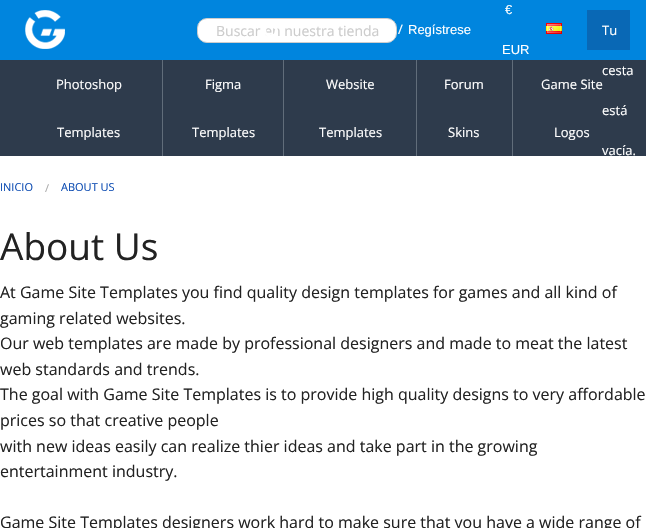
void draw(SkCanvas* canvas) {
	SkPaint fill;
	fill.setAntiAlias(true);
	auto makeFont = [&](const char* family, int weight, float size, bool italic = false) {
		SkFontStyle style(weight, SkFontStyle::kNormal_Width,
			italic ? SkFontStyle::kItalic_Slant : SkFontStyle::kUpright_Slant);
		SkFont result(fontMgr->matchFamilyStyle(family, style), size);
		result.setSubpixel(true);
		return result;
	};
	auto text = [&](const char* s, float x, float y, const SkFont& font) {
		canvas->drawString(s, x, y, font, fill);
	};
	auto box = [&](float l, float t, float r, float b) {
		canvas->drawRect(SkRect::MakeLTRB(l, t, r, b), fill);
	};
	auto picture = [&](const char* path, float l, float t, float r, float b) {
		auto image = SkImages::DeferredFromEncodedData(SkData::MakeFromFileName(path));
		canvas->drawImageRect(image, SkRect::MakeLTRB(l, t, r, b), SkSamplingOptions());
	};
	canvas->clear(0xFFFFFFFF);
	fill.setColor(0xFF0085DE);
	box(0, 0, 646, 60);
	picture("image0.png", 25, 10, 65, 49);
	fill.setColor(0xFFFFFFFF);
	canvas->drawRoundRect(SkRect::MakeLTRB(197.5f, 18.5f, 396.5f, 42.5f), 9.5f, 9.5f, fill);
	fill.setStyle(SkPaint::kStroke_Style);
	fill.setStrokeWidth(1);
	fill.setColor(0xFFCDCDCD);
	canvas->drawRoundRect(SkRect::MakeLTRB(197.5f, 18.5f, 396.5f, 42.5f), 9.5f, 9.5f, fill);
	picture("image2.png", 546, 23, 562, 34);
	fill.setStyle(SkPaint::kFill_Style);
	fill.setColor(0xFF0968B5);
	box(587, 10, 630, 50);
	fill.setColor(0xFF2E3B4C);
	box(0, 60, 646, 156);
	fill.setColor(0xFF616D7A);
	box(162, 60, 163, 156);
	box(283, 60, 284, 156);
	box(416, 60, 417, 156);
	box(512, 60, 513, 156);
	auto font1 = makeFont("Open Sans", 400, 14);
	fill.setColor(0xFFCCCCCC);
	text("Buscar en nuestra tienda", 216, 36, font1);
	picture("image1.png", 264, 28, 278, 37);
	auto font2 = makeFont("Open Sans", 400, 13);
	fill.setColor(0xFFFFFFFF);
	text("/", 398, 34, font2);
	auto font3 = makeFont("Liberation Sans", 400, 13);
	text("Regístrese", 408, 34, font3);
	text("€", 505, 14, font3);
	text("EUR", 502, 54, font3);
	text("Tu", 602, 35, font2);
	text("cesta", 602, 75, font2);
	text("está", 602, 115, font2);
	text("vacía.", 602, 155, font2);
	text("Photoshop", 56, 89, font2);
	text("Templates", 57, 137, font2);
	text("Figma", 205, 89, font2);
	text("Templates", 192, 137, font2);
	text("Website", 326, 89, font2);
	text("Templates", 319, 137, font2);
	text("Forum", 444, 89, font2);
	text("Skins", 448, 137, font2);
	text("Game Site", 541, 89, font2);
	text("Logos", 554, 137, font2);
	auto font4 = makeFont("Open Sans", 400, 11);
	fill.setColor(0xFF0E4DB3);
	text("INICIO", 0, 191, font4);
	fill.setColor(0xFFAAAAAA);
	text("/", 45, 192, font4);
	fill.setColor(0xFF0E4DB3);
	text("ABOUT US", 61, 191, font4);
	auto font5 = makeFont("Open Sans", 400, 37);
	fill.setColor(0xFF222222);
	text("About Us", 0, 260, font5);
	auto font6 = makeFont("Open Sans", 400, 16);
	text("At Game Site Templates you find quality design templates for games and all kind of", 0, 298, font6);
	text("gaming related websites.", 0, 324, font6);
	text("Our web templates are made by professional designers and made to meat the latest", 0, 349, font6);
	text("web standards and trends.", 0, 375, font6);
	text("The goal with Game Site Templates is to provide high quality designs to very affordable", 0, 400, font6);
	text("prices so that creative people", 0, 426, font6);
	text("with new ideas easily can realize thier ideas and take part in the growing", 0, 452, font6);
	text("entertainment industry.", 0, 477, font6);
	text("Game Site Templates designers work hard to make sure that you have a wide range of", 0, 528, font6);
}
